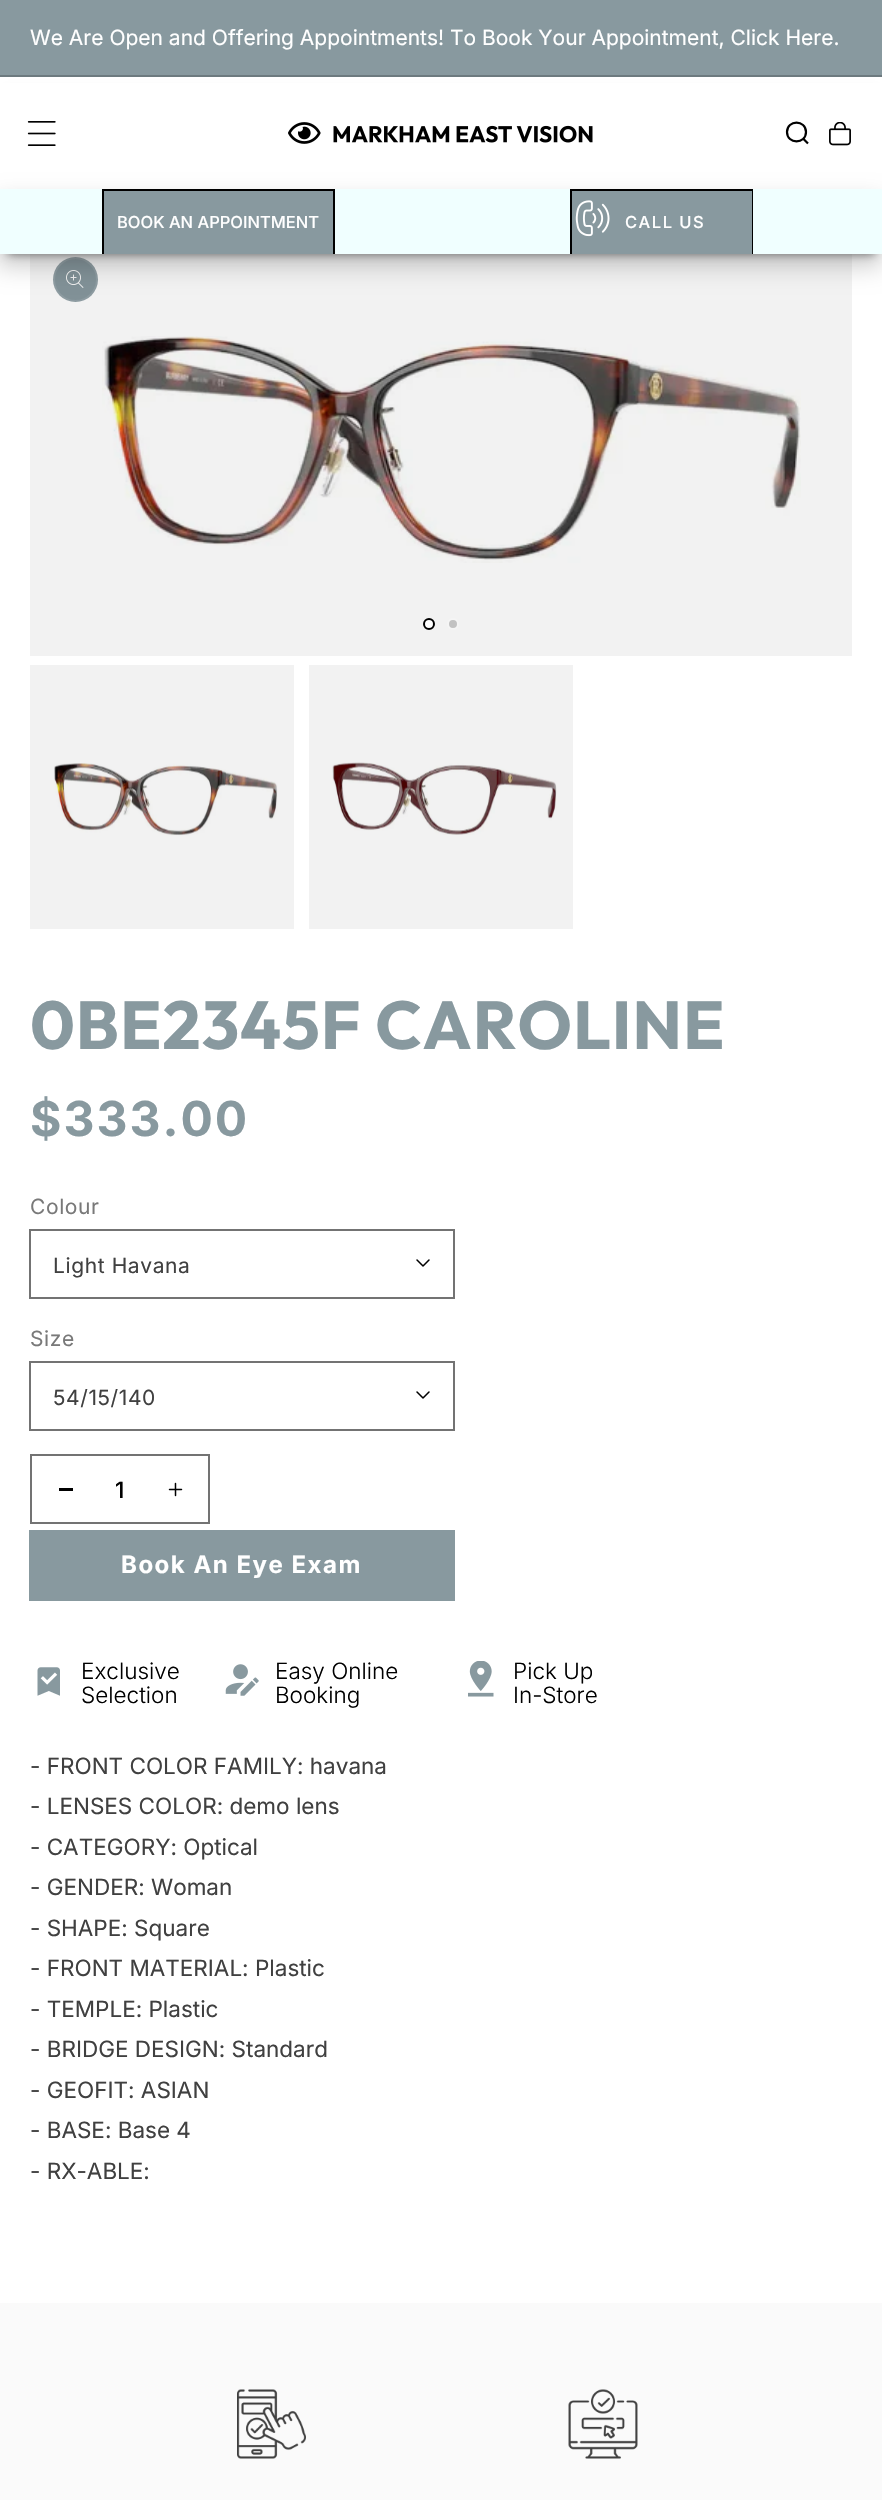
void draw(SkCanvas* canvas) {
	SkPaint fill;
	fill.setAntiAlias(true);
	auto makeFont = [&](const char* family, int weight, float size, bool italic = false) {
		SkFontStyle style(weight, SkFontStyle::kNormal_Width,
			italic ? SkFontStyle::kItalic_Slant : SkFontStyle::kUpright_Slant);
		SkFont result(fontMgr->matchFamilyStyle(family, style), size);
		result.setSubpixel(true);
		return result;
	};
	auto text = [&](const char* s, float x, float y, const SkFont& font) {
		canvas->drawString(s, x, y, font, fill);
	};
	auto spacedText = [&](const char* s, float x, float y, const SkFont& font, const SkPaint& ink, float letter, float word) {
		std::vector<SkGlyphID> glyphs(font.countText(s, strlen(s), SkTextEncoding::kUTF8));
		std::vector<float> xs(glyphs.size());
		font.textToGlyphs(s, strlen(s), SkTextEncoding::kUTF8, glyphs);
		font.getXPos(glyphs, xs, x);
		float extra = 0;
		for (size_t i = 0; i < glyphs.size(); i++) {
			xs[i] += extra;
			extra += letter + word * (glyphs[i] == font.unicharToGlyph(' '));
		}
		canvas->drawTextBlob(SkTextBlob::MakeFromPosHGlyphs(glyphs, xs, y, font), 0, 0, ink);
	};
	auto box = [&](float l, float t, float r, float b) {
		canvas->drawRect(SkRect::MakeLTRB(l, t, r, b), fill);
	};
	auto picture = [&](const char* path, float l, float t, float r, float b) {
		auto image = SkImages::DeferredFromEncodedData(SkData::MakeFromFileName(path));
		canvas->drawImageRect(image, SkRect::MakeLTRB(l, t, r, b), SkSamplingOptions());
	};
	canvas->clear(0xFFFFFFFF);
	fill.setColor(0xFF88999F);
	box(0, 0, 882, 75);
	fill.setColor(0xFF6D7A7F);
	box(0, 75, 882, 77);
	fill.setColor(0xFFF2F2F2);
	box(30, 254, 852, 656);
	fill.setColor(0xFF819197);
	canvas->drawCircle(75.5f, 279.5f, 22.5f, fill);
	fill.setStyle(SkPaint::kStroke_Style);
	fill.setStrokeWidth(2);
	fill.setColor(0x1AF2F2F2);
	canvas->drawCircle(75.5f, 279.5f, 21.5f, fill);
	fill.setStyle(SkPaint::kFill_Style);
	fill.setColor(0xFF808080);
	fill.setMaskFilter(SkMaskFilter::MakeBlur(kNormal_SkBlurStyle, 4.5f));
	canvas->drawRect(SkRect::MakeLTRB(8, 92, 875, 254), fill);
	fill.setMaskFilter(nullptr);
	fill.setColor(0xFFFFFFFF);
	box(0, 83, 882, 189);
	picture("image0.png", 27, 121, 56, 146);
	picture("image1.png", 288, 122, 593, 144);
	fill.setStyle(SkPaint::kStroke_Style);
	fill.setStrokeWidth(2.2f);
	fill.setStrokeCap(SkPaint::kRound_Cap);
	fill.setColor(0xFF000000);
	canvas->drawPath(SkPathBuilder().moveTo(808, 143.5f).lineTo(803, 138.5f).close().moveTo(806, 132).cubicTo(806, 144.5f, 787, 144.5f, 787, 132).cubicTo(787, 119.5f, 806, 119.5f, 806, 132).close().detach(), fill);
	picture("image2.png", 829, 122, 851, 146);
	picture("image4.png", 66, 270, 84, 288);
	fill.setStyle(SkPaint::kFill_Style);
	fill.setColor(0x33000000);
	fill.setMaskFilter(SkMaskFilter::MakeBlur(kNormal_SkBlurStyle, 12));
	canvas->drawRect(SkRect::MakeLTRB(-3, 201, 882, 266), fill);
	fill.setMaskFilter(nullptr);
	fill.setColor(0xFFF0FFFF);
	box(0, 189, 882, 254);
	fill.setStyle(SkPaint::kStroke_Style);
	fill.setStrokeWidth(2);
	fill.setStrokeCap(SkPaint::kButt_Cap);
	fill.setColor(0xFF000000);
	canvas->drawRect(SkRect::MakeLTRB(103, 190, 334, 253), fill);
	fill.setStyle(SkPaint::kFill_Style);
	fill.setColor(0xFF88999F);
	box(104, 191, 333, 254);
	fill.setStyle(SkPaint::kStroke_Style);
	fill.setColor(0xFF000000);
	canvas->drawRect(SkRect::MakeLTRB(571, 190, 752, 253), fill);
	fill.setStyle(SkPaint::kFill_Style);
	fill.setColor(0xFF88999F);
	box(572, 191, 752, 254);
	picture("image3.png", 575, 200, 610, 237);
	picture("image5.png", 102, 336, 801, 563);
	fill.setColor(0xFFFFFFFF);
	canvas->drawCircle(429, 624, 5, fill);
	fill.setStyle(SkPaint::kStroke_Style);
	fill.setColor(0xFF000000);
	canvas->drawCircle(429, 624, 5, fill);
	fill.setStyle(SkPaint::kFill_Style);
	fill.setColor(0xFFC2C2C2);
	canvas->drawCircle(453, 624, 5, fill);
	fill.setStyle(SkPaint::kStroke_Style);
	fill.setColor(0xFFF5F5F5);
	canvas->drawCircle(453, 624, 5, fill);
	fill.setStyle(SkPaint::kFill_Style);
	fill.setColor(0xFFF2F2F2);
	box(30, 665, 294, 929);
	picture("image6.png", 54, 763, 278, 836);
	box(309, 665, 573, 929);
	picture("image7.png", 332, 762, 557, 835);
	fill.setStyle(SkPaint::kStroke_Style);
	fill.setColor(0xFF737373);
	canvas->drawRect(SkRect::MakeLTRB(30, 1230, 454, 1298), fill);
	picture("image8.png", 416, 1259, 430, 1267);
	canvas->drawRect(SkRect::MakeLTRB(30, 1362, 454, 1430), fill);
	picture("image8.png", 416, 1391, 430, 1399);
	canvas->drawRect(SkRect::MakeLTRB(31, 1455, 209, 1523), fill);
	fill.setStyle(SkPaint::kFill_Style);
	fill.setColor(0xFF000000);
	box(59, 1488, 73, 1491);
	picture("image9.png", 168, 1482, 183, 1497);
	fill.setStyle(SkPaint::kStroke_Style);
	fill.setColor(0xFF88999F);
	canvas->drawRect(SkRect::MakeLTRB(30, 1531, 454, 1600), fill);
	fill.setStyle(SkPaint::kFill_Style);
	box(31, 1532, 453, 1599);
	picture("image10.png", 37, 1667, 60, 1696);
	picture("image11.png", 225, 1664, 259, 1696);
	picture("image12.png", 468, 1661, 494, 1697);
	fill.setColor(0xFFFAFAFA);
	box(0, 2303, 882, 2500);
	picture("image13.png", 237, 2389, 306, 2459);
	picture("image14.png", 568, 2389, 638, 2459);
	auto font1 = makeFont("Inter", 400, 21);
	fill.setColor(0xFFFFFFFF);
	text("We Are Open and Offering Appointments! To Book Your Appointment, Click Here.", 30, 45, font1);
	auto font2 = makeFont("Inter", 500, 16.5f);
	text("BOOK AN APPOINTMENT", 117, 228, font2);
	spacedText("CALL US", 625, 228, font2, fill, 1.5f, 0);
	auto font3 = makeFont("Outfit", 700, 67.5f);
	fill.setColor(0xFF88999F);
	spacedText("0BE2345F CAROLINE", 30, 1049, font3, fill, 0.9f, 0);
	auto font4 = makeFont("Inter", 700, 48);
	spacedText("$333.00", 30, 1136, font4, fill, 2, 0);
	fill.setColor(0xFF797979);
	spacedText("Colour", 30, 1214, font1, fill, 0.6f, 0);
	fill.setColor(0xFF404040);
	spacedText("Light Havana", 53, 1273, font1, fill, 0.6f, 0);
	fill.setColor(0xFF797979);
	spacedText("Size", 30, 1346, font1, fill, 0.6f, 0);
	fill.setColor(0xFF404040);
	spacedText("54/15/140", 53, 1405, font1, fill, 0.6f, 0);
	auto font5 = makeFont("Inter", 500, 22.5f);
	fill.setColor(0xFF000000);
	text("1", 115, 1498, font5);
	auto font6 = makeFont("Inter", 700, 24);
	fill.setColor(0xFFFFFFFF);
	spacedText("Book An Eye Exam", 121, 1573, font6, fill, 1.5f, 0);
	auto font7 = makeFont("Inter", 300, 22.5f);
	fill.setColor(0xFF000000);
	text("Exclusive", 81, 1679, font7);
	text("Selection", 81, 1703, font7);
	text("Easy Online", 275, 1679, font7);
	text("Booking", 275, 1703, font7);
	text("Pick Up", 513, 1679, font7);
	text("In-Store", 513, 1703, font7);
	auto font8 = makeFont("Inter", 400, 22.5f);
	fill.setColor(0xFF404040);
	text("- FRONT COLOR FAMILY: havana", 30, 1774, font8);
	text("- LENSES COLOR: demo lens", 30, 1814, font8);
	text("- CATEGORY: Optical", 30, 1855, font8);
	text("- GENDER: Woman", 30, 1895, font8);
	text("- SHAPE: Square", 30, 1936, font8);
	text("- FRONT MATERIAL: Plastic", 30, 1976, font8);
	text("- TEMPLE: Plastic", 30, 2017, font8);
	text("- BRIDGE DESIGN: Standard", 30, 2057, font8);
	text("- GEOFIT: ASIAN", 30, 2098, font8);
	text("- BASE: Base 4", 30, 2138, font8);
	text("- RX-ABLE:", 30, 2179, font8);
}
